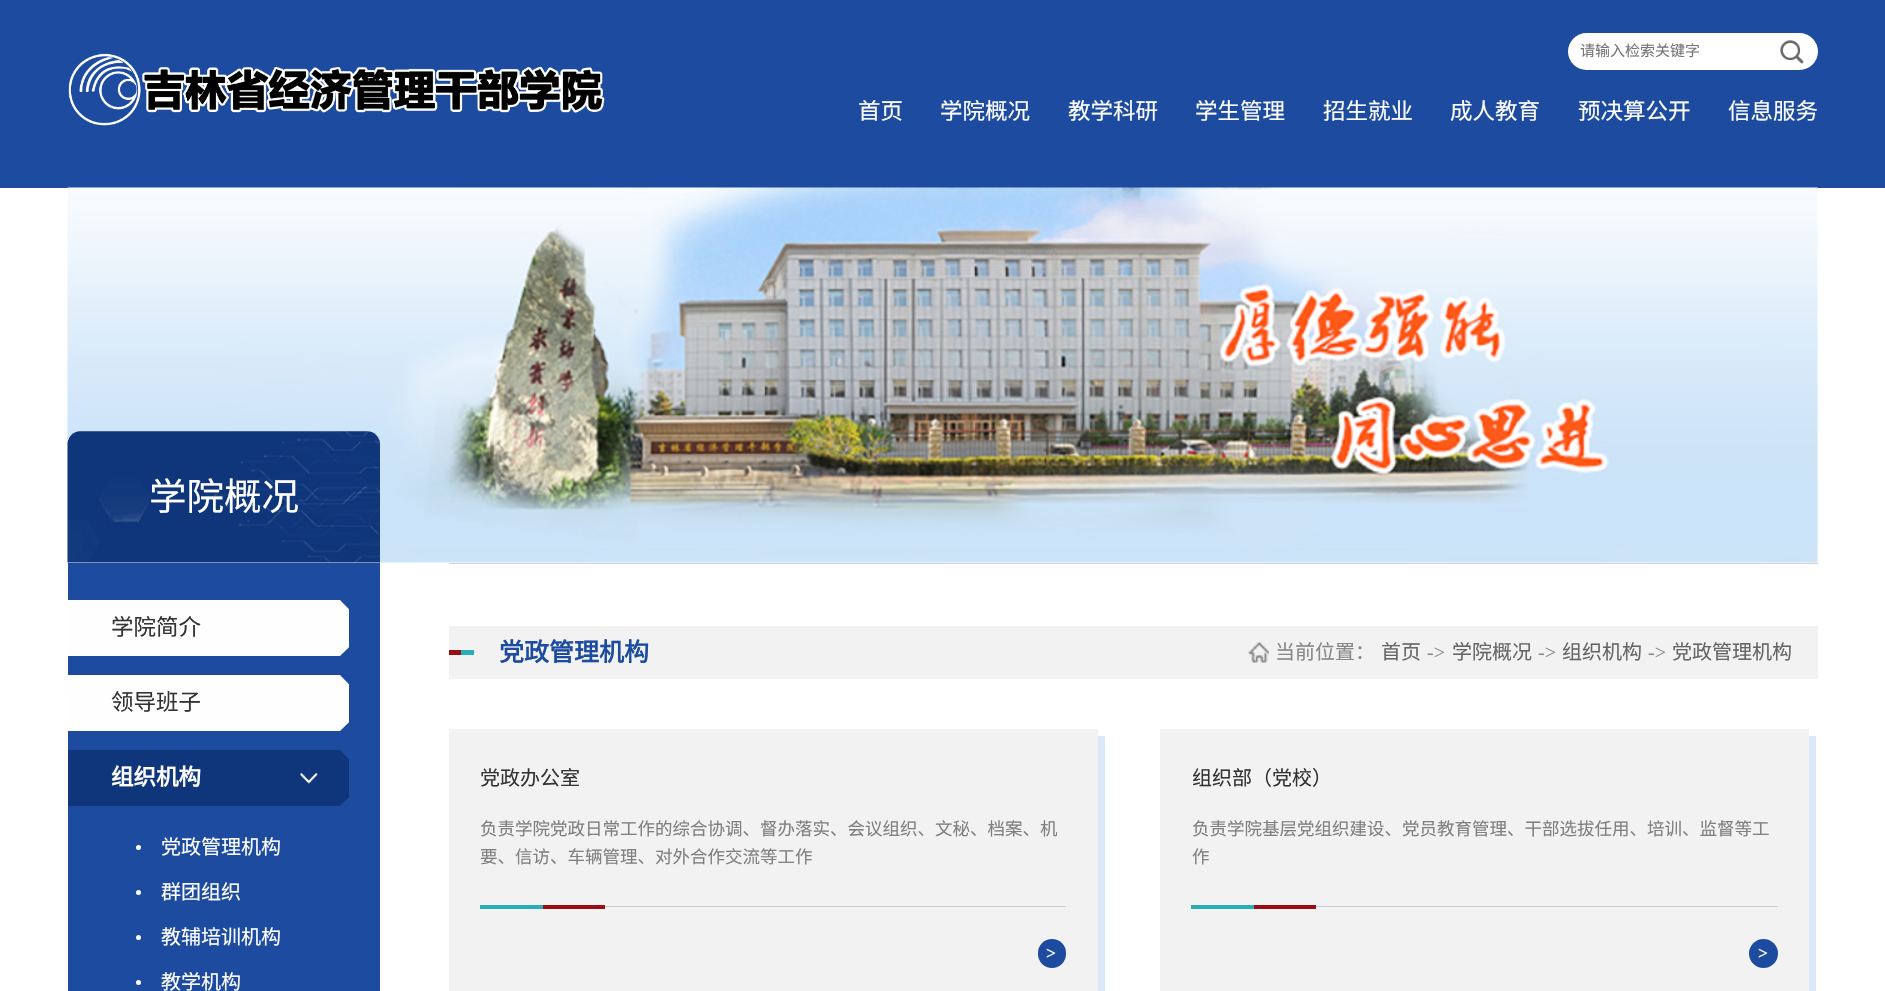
void draw(SkCanvas* canvas) {
	SkPaint fill;
	fill.setAntiAlias(true);
	auto makeFont = [&](const char* family, int weight, float size, bool italic = false) {
		SkFontStyle style(weight, SkFontStyle::kNormal_Width,
			italic ? SkFontStyle::kItalic_Slant : SkFontStyle::kUpright_Slant);
		SkFont result(fontMgr->matchFamilyStyle(family, style), size);
		result.setSubpixel(true);
		return result;
	};
	auto text = [&](const char* s, float x, float y, const SkFont& font) {
		canvas->drawString(s, x, y, font, fill);
	};
	auto box = [&](float l, float t, float r, float b) {
		canvas->drawRect(SkRect::MakeLTRB(l, t, r, b), fill);
	};
	auto roundBox = [&](float l, float t, float r, float b, float radius) {
		canvas->drawRoundRect(SkRect::MakeLTRB(l, t, r, b), radius, radius, fill);
	};
	auto picture = [&](const char* path, float l, float t, float r, float b) {
		auto image = SkImages::DeferredFromEncodedData(SkData::MakeFromFileName(path));
		canvas->drawImageRect(image, SkRect::MakeLTRB(l, t, r, b), SkSamplingOptions());
	};
	canvas->clear(0xFFFFFFFF);
	fill.setColor(0xFF1C4B9F);
	box(0, 0, 1885, 188);
	picture("image0.png", 68, 53, 605, 126);
	fill.setColor(0xFFFFFFFF);
	roundBox(1568, 33, 1818, 70, 18.5f);
	picture("image1.png", 1780, 40, 1804, 64);
	picture("image2.png", 67, 187, 1818, 563);
	picture("image3.png", 67, 431, 380, 563);
	fill.setColor(0xFF1C4B9F);
	box(68, 563, 380, 991);
	fill.setColor(0xFFFEFEFE);
	box(68, 600, 340, 656);
	canvas->save();
	canvas->clipRect(SkRect::MakeLTRB(68, 600, 349, 656));
	canvas->drawPath(SkPathBuilder().moveTo(340, 656).lineTo(340, 600).lineTo(368, 629).close().detach(), fill);
	canvas->restore();
	box(68, 675, 340, 731);
	canvas->save();
	canvas->clipRect(SkRect::MakeLTRB(68, 675, 349, 731));
	canvas->drawPath(SkPathBuilder().moveTo(340, 731).lineTo(340, 675).lineTo(368, 704).close().detach(), fill);
	canvas->restore();
	fill.setColor(0xFF0F367B);
	box(68, 750, 340, 806);
	picture("image4.png", 300, 773, 318, 784);
	canvas->save();
	canvas->clipRect(SkRect::MakeLTRB(68, 750, 349, 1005));
	canvas->drawPath(SkPathBuilder().moveTo(340, 806).lineTo(340, 750).lineTo(368, 779).close().detach(), fill);
	canvas->restore();
	fill.setColor(0xFFFFFFFF);
	canvas->drawCircle(138.5f, 847.5f, 2.5f, fill);
	canvas->drawCircle(138.5f, 892.5f, 2.5f, fill);
	canvas->drawCircle(138.5f, 937.5f, 2.5f, fill);
	canvas->drawCircle(138.5f, 982.5f, 2.5f, fill);
	fill.setColor(0xFFD2D2D2);
	box(449, 563, 1818, 564);
	fill.setColor(0xFFF2F2F2);
	box(449, 626, 1818, 679);
	fill.setColor(0xFF9B0D14);
	box(449, 650, 461, 655);
	fill.setColor(0xFF27AEB6);
	box(461, 650, 474, 655);
	picture("image5.png", 1248, 642, 1269, 663);
	fill.setColor(0xFFDBE8F7);
	canvas->drawPath(SkPathBuilder().moveTo(456, 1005).lineTo(456, 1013).lineTo(1105, 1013).lineTo(1105, 736).lineTo(1098, 736).lineTo(1098, 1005).close().detach(), fill);
	fill.setColor(0xFFF2F2F2);
	box(449, 729, 1098, 991);
	fill.setColor(0xFFCCCCCC);
	box(605, 906, 1066, 907);
	fill.setColor(0xFF27AEB6);
	box(480, 905, 543, 909);
	fill.setColor(0xFF9B0D14);
	box(543, 905, 605, 909);
	fill.setColor(0xFF1C4B9F);
	roundBox(1038, 939, 1066, 968, 14);
	fill.setColor(0xFFDBE8F7);
	canvas->drawPath(SkPathBuilder().moveTo(1168, 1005).lineTo(1168, 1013).lineTo(1816, 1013).lineTo(1816, 736).lineTo(1809, 736).lineTo(1809, 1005).close().detach(), fill);
	fill.setColor(0xFFF2F2F2);
	box(1160, 729, 1809, 991);
	fill.setColor(0xFFCCCCCC);
	box(1316, 906, 1778, 907);
	fill.setColor(0xFF27AEB6);
	box(1191, 905, 1254, 909);
	fill.setColor(0xFF9B0D14);
	box(1254, 905, 1316, 909);
	fill.setColor(0xFF1C4B9F);
	canvas->drawCircle(1763.5f, 953.5f, 14.5f, fill);
	auto font1 = makeFont("Noto Sans CJK SC", 400, 15);
	fill.setColor(0xFF757575);
	text("请输入检索关键字", 1580, 56, font1);
	auto font2 = makeFont("Noto Sans CJK SC", 400, 22.5f);
	fill.setColor(0xFFFFFFFF);
	text("首页", 858, 119, font2);
	text("学院概况", 940, 119, font2);
	text("教学科研", 1068, 119, font2);
	text("学生管理", 1195, 119, font2);
	text("招生就业", 1323, 119, font2);
	text("成人教育", 1450, 119, font2);
	text("预决算公开", 1578, 119, font2);
	text("信息服务", 1728, 119, font2);
	auto font3 = makeFont("Noto Sans CJK SC", 400, 37.5f);
	text("学院概况", 149, 510, font3);
	fill.setColor(0xFF333333);
	text("学院简介", 111, 635, font2);
	text("领导班子", 111, 710, font2);
	auto font4 = makeFont("Noto Sans CJK SC", 700, 22.5f);
	fill.setColor(0xFFFFFFFF);
	text("组织机构", 111, 785, font4);
	auto font5 = makeFont("Noto Sans CJK SC", 400, 20);
	text("党政管理机构", 161, 854, font5);
	text("群团组织", 161, 899, font5);
	text("教辅培训机构", 161, 944, font5);
	text("教学机构", 161, 989, font5);
	auto font6 = makeFont("Noto Sans CJK SC", 700, 25);
	fill.setColor(0xFF1C4B9F);
	text("党政管理机构", 499, 661, font6);
	fill.setColor(0xFF888888);
	text("当前位置：", 1275, 659, font5);
	fill.setColor(0xFF666666);
	text("首页", 1381, 659, font5);
	auto font7 = makeFont("Liberation Serif", 400, 20);
	fill.setColor(0xFF888888);
	text("->", 1427, 659, font7);
	fill.setColor(0xFF666666);
	text("学院概况", 1452, 659, font5);
	fill.setColor(0xFF888888);
	text("->", 1538, 659, font7);
	fill.setColor(0xFF666666);
	text("组织机构", 1562, 659, font5);
	fill.setColor(0xFF888888);
	text("->", 1648, 659, font7);
	fill.setColor(0xFF666666);
	text("党政管理机构", 1672, 659, font5);
	fill.setColor(0xFF333333);
	text("党政办公室", 480, 785, font5);
	auto font8 = makeFont("Noto Sans CJK SC", 400, 17.5f);
	fill.setColor(0xFF808080);
	text("负责学院党政日常工作的综合协调、督办落实、会议组织、文秘、档案、机", 480, 835, font8);
	text("要、信访、车辆管理、对外合作交流等工作", 480, 863, font8);
	auto font9 = makeFont("Liberation Serif", 700, 17.5f);
	fill.setColor(0xFFFFFFFF);
	text(">", 1046, 959, font9);
	fill.setColor(0xFF333333);
	text("组织部（党校）", 1192, 785, font5);
	fill.setColor(0xFF808080);
	text("负责学院基层党组织建设、党员教育管理、干部选拔任用、培训、监督等工", 1192, 835, font8);
	text("作", 1192, 863, font8);
	fill.setColor(0xFFFFFFFF);
	text(">", 1758, 959, font9);
}
